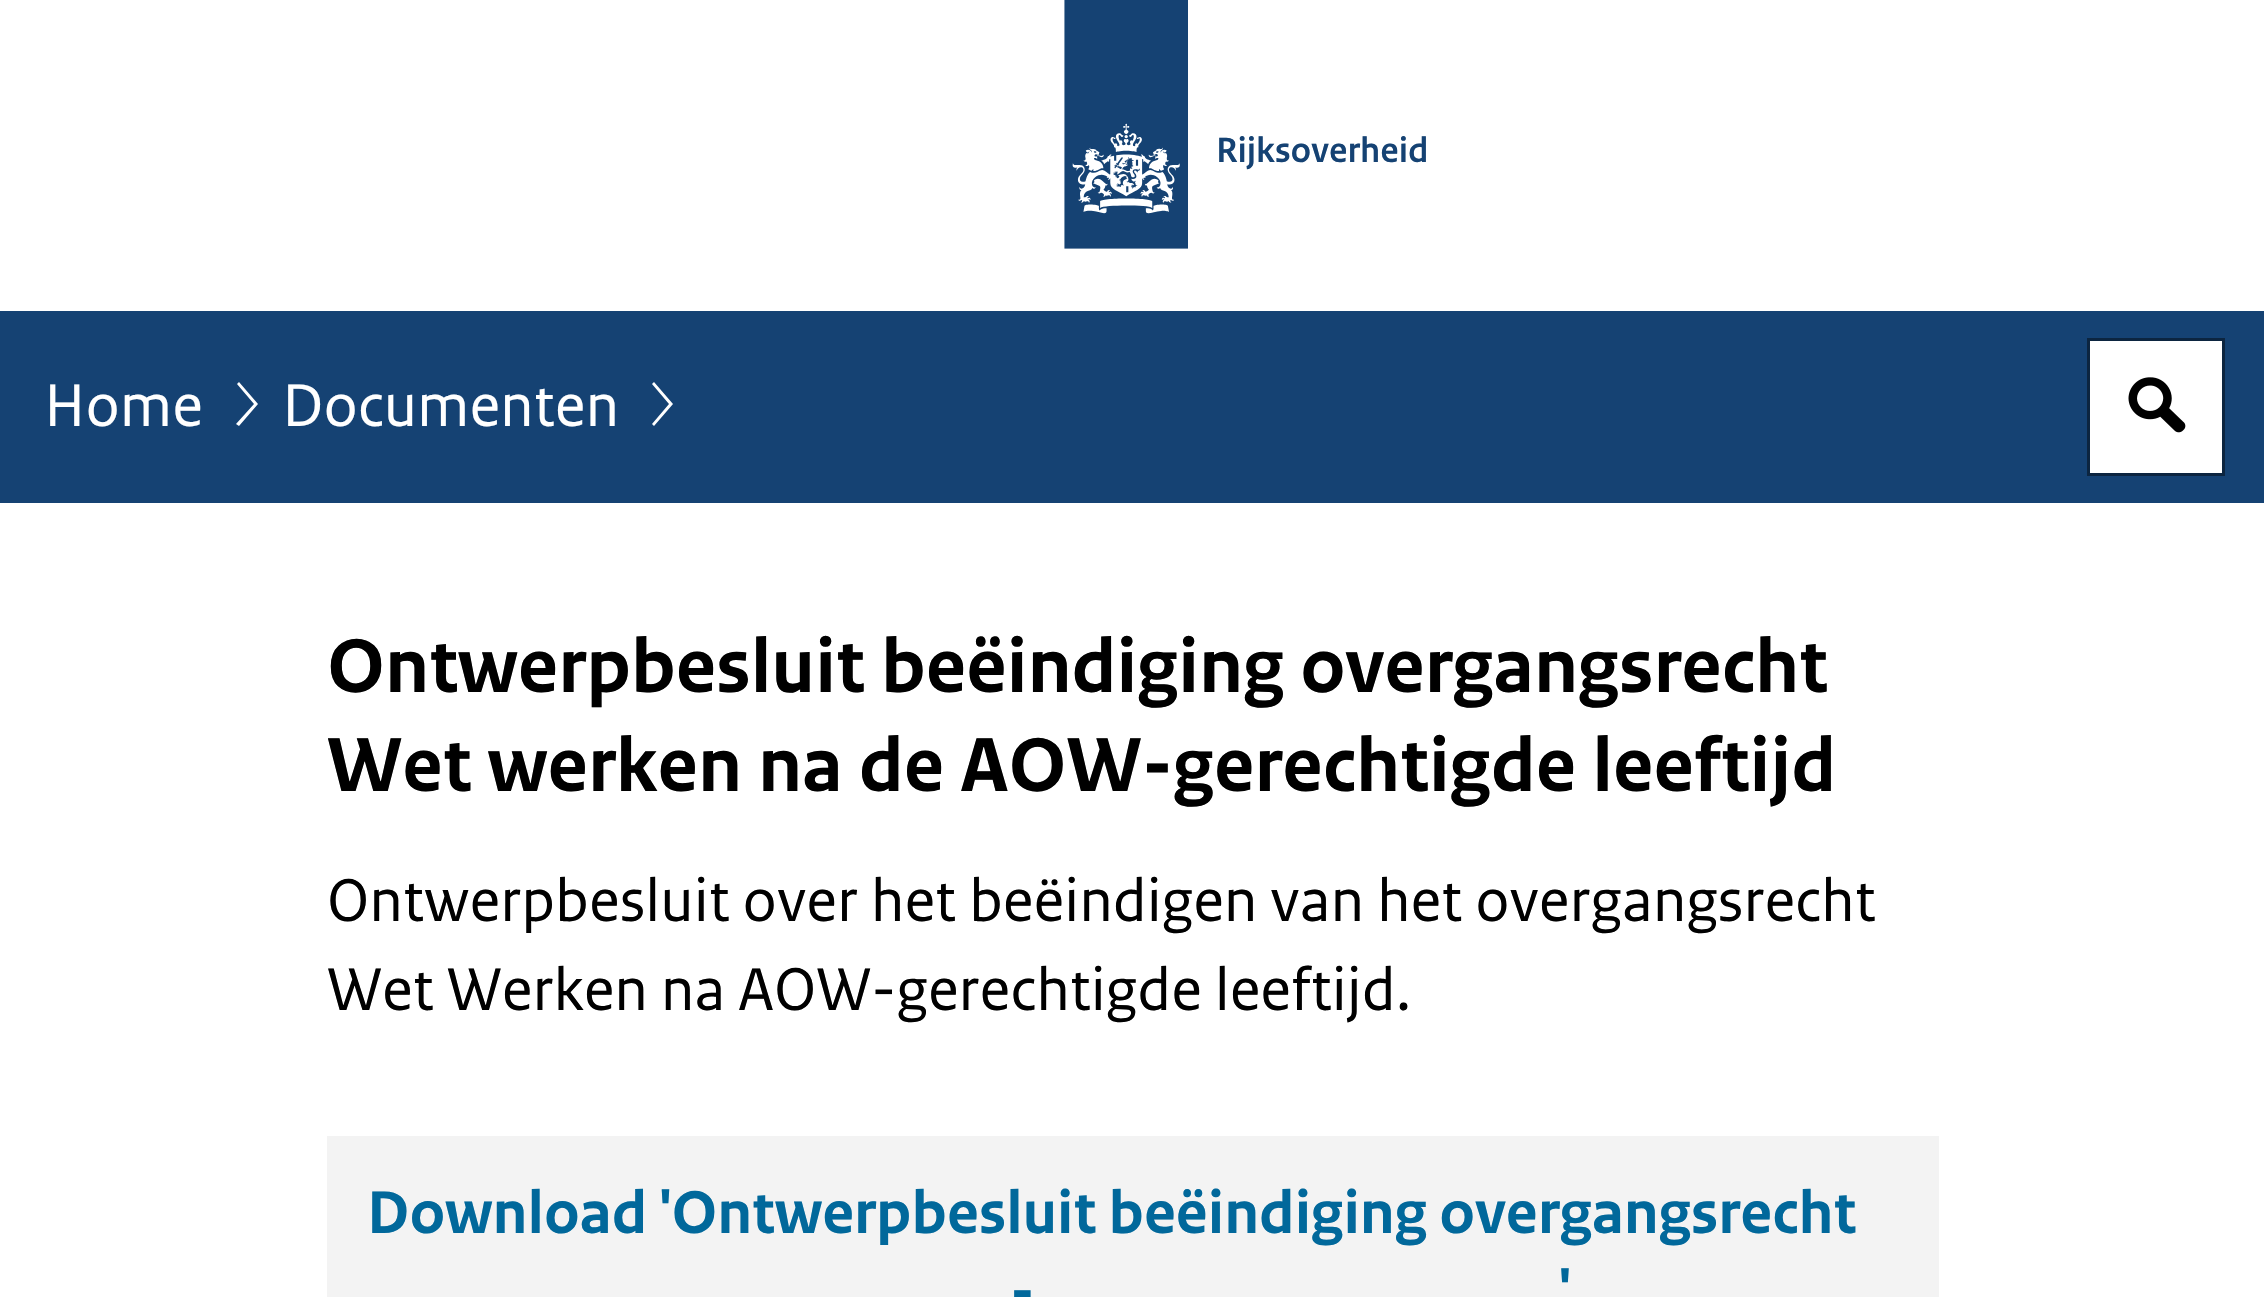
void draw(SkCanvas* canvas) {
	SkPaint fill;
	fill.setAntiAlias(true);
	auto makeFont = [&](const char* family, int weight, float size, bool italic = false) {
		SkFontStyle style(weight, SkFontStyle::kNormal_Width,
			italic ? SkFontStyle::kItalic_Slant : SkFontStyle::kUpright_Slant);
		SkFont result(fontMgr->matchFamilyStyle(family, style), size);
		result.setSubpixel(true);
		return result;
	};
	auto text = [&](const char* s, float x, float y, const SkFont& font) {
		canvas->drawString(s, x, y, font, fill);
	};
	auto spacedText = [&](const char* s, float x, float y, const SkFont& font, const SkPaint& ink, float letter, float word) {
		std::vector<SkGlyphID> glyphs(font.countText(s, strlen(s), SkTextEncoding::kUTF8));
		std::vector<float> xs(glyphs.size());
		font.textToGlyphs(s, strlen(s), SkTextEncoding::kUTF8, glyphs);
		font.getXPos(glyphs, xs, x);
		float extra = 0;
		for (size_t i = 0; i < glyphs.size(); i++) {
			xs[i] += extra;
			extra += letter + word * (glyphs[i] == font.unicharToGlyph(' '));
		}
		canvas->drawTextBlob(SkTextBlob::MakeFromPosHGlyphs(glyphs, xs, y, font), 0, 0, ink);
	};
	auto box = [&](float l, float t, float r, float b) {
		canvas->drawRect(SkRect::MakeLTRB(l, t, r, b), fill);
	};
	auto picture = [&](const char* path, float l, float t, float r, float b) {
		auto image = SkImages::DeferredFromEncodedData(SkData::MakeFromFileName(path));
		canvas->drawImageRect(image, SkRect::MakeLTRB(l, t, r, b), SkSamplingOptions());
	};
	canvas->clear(0xFFFFFFFF);
	picture("image0.png", 1064, 0, 1188, 249);
	fill.setColor(0xFF154273);
	box(0, 311, 2264, 503);
	fill.setColor(0xFFFFFFFF);
	canvas->drawPath(SkPathBuilder().moveTo(239, 426).lineTo(236, 424).lineTo(254, 404).lineTo(237, 384).lineTo(239, 382).lineTo(258, 404).close().detach(), fill);
	canvas->drawPath(SkPathBuilder().moveTo(654, 426).lineTo(652, 424).lineTo(669, 404).lineTo(652, 384).lineTo(654, 382).lineTo(673, 404).close().detach(), fill);
	canvas->drawRect(SkRect::MakeLTRB(2088.5f, 339.5f, 2223.5f, 474.5f), fill);
	fill.setStyle(SkPaint::kStroke_Style);
	fill.setStrokeWidth(3);
	fill.setColor(0xFF0C2540);
	canvas->drawRect(SkRect::MakeLTRB(2088.5f, 339.5f, 2223.5f, 474.5f), fill);
	picture("image1.png", 2128, 377, 2186, 433);
	fill.setStyle(SkPaint::kFill_Style);
	fill.setColor(0xFFF3F3F3);
	box(327, 1136, 1939, 1297);
	auto font1 = makeFont("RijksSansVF", 600, 37);
	fill.setColor(0xFF154273);
	text("Rijksoverheid", 1216, 162, font1);
	auto font2 = makeFont("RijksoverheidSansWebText", 400, 63.4f);
	fill.setColor(0xFFFFFFFF);
	text("Home", 44, 426, font2);
	text("Documenten", 282, 426, font2);
	auto font3 = makeFont("RijksoverheidSansWebText", 700, 80.25f);
	fill.setColor(0xFF000000);
	text("Ontwerpbesluit beëindiging overgangsrecht", 327, 692, font3);
	text("Wet werken na de AOW-gerechtigde leeftijd", 327, 791, font3);
	spacedText("Ontwerpbesluit over het beëindigen van het overgangsrecht", 327, 921, font2, fill, 0, -0.25f);
	spacedText("Wet Werken na AOW-gerechtigde leeftijd.", 327, 1010, font2, fill, 0, -0.25f);
	auto font4 = makeFont("RijksoverheidSansWebText", 700, 63.4f);
	fill.setColor(0xFF01689B);
	spacedText("Download 'Ontwerpbesluit beëindiging overgangsrecht", 367, 1233, font4, fill, 0, -0.5f);
	text("'", 1559, 1312, font4);
	text("-", 1010, 1312, font4);
}
